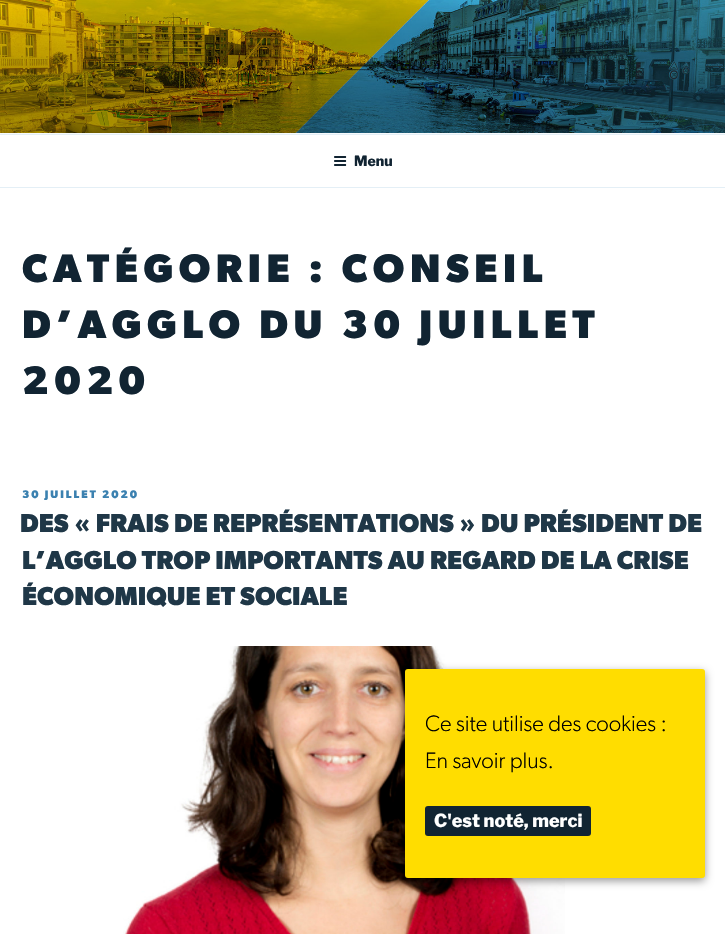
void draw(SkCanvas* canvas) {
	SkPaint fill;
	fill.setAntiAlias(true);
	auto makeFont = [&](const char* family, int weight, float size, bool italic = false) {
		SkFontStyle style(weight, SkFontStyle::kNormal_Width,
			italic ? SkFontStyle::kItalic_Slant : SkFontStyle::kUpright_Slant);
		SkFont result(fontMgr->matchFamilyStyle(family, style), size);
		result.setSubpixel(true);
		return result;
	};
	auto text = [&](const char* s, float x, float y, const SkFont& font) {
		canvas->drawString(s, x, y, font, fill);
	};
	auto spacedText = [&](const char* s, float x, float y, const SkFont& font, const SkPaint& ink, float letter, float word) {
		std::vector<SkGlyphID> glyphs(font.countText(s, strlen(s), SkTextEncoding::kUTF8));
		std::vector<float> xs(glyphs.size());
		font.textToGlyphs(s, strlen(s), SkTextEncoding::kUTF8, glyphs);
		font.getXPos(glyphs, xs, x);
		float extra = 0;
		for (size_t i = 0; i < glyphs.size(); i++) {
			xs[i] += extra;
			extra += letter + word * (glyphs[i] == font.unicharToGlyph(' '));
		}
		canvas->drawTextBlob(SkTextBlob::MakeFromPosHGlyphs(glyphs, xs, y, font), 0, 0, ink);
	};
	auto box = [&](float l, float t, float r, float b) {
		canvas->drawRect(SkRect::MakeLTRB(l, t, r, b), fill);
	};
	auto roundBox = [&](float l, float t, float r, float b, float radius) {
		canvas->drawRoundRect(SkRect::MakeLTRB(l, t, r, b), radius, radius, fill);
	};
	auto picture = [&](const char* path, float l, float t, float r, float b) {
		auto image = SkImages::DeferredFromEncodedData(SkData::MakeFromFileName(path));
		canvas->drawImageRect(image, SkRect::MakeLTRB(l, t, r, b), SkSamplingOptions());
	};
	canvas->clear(0xFFFFFFFF);
	fill.setColor(0xFFF7FAFC);
	box(0, 133, 725, 134);
	picture("image0.png", 0, 0, 725, 133);
	fill.setColor(0xFFE4EFF6);
	box(0, 134, 725, 135);
	box(0, 187, 725, 188);
	picture("image1.png", 334, 156, 347, 166);
	picture("image2.png", 123, 646, 565, 934);
	fill.setColor(0x66000000);
	fill.setMaskFilter(SkMaskFilter::MakeBlur(kNormal_SkBlurStyle, 4.5f));
	canvas->drawRoundRect(SkRect::MakeLTRB(405, 672, 705, 881), 3, 3, fill);
	fill.setMaskFilter(nullptr);
	fill.setColor(0xFFFFDD00);
	roundBox(405, 669, 705, 878, 3);
	fill.setColor(0xFF112432);
	roundBox(425, 806, 591, 836, 3);
	auto font1 = makeFont("Libre Franklin", 800, 14);
	text("Menu", 354, 166, font1);
	auto font2 = makeFont("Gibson", 700, 40);
	spacedText("CATÉGORIE : CONSEIL", 22, 282, font2, fill, 5.6f, 0);
	spacedText("D’AGGLO DU 30 JUILLET", 22, 338, font2, fill, 5.6f, 0);
	spacedText("2020", 22, 394, font2, fill, 5.6f, 0);
	auto font3 = makeFont("Gibson", 700, 11);
	fill.setColor(0xFF3B81B0);
	spacedText("30 JUILLET 2020", 22, 498, font3, fill, 2, 0);
	auto font4 = makeFont("Gibson", 700, 26);
	fill.setColor(0xFF1F3747);
	text("DES « FRAIS DE REPRÉSENTATIONS » DU PRÉSIDENT DE", 20, 532, font4);
	text("L’AGGLO TROP IMPORTANTS AU REGARD DE LA CRISE", 22, 569, font4);
	text("ÉCONOMIQUE ET SOCIALE", 22, 605, font4);
	auto font5 = makeFont("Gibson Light", 300, 22.4f);
	fill.setColor(0xFF000000);
	text("Ce site utilise des cookies :", 425, 731, font5);
	text("En savoir plus.", 425, 768, font5);
	auto font6 = makeFont("Libre Franklin", 800, 18);
	fill.setColor(0xFFFFFFFF);
	text("C'est noté, merci", 434, 827, font6);
}
